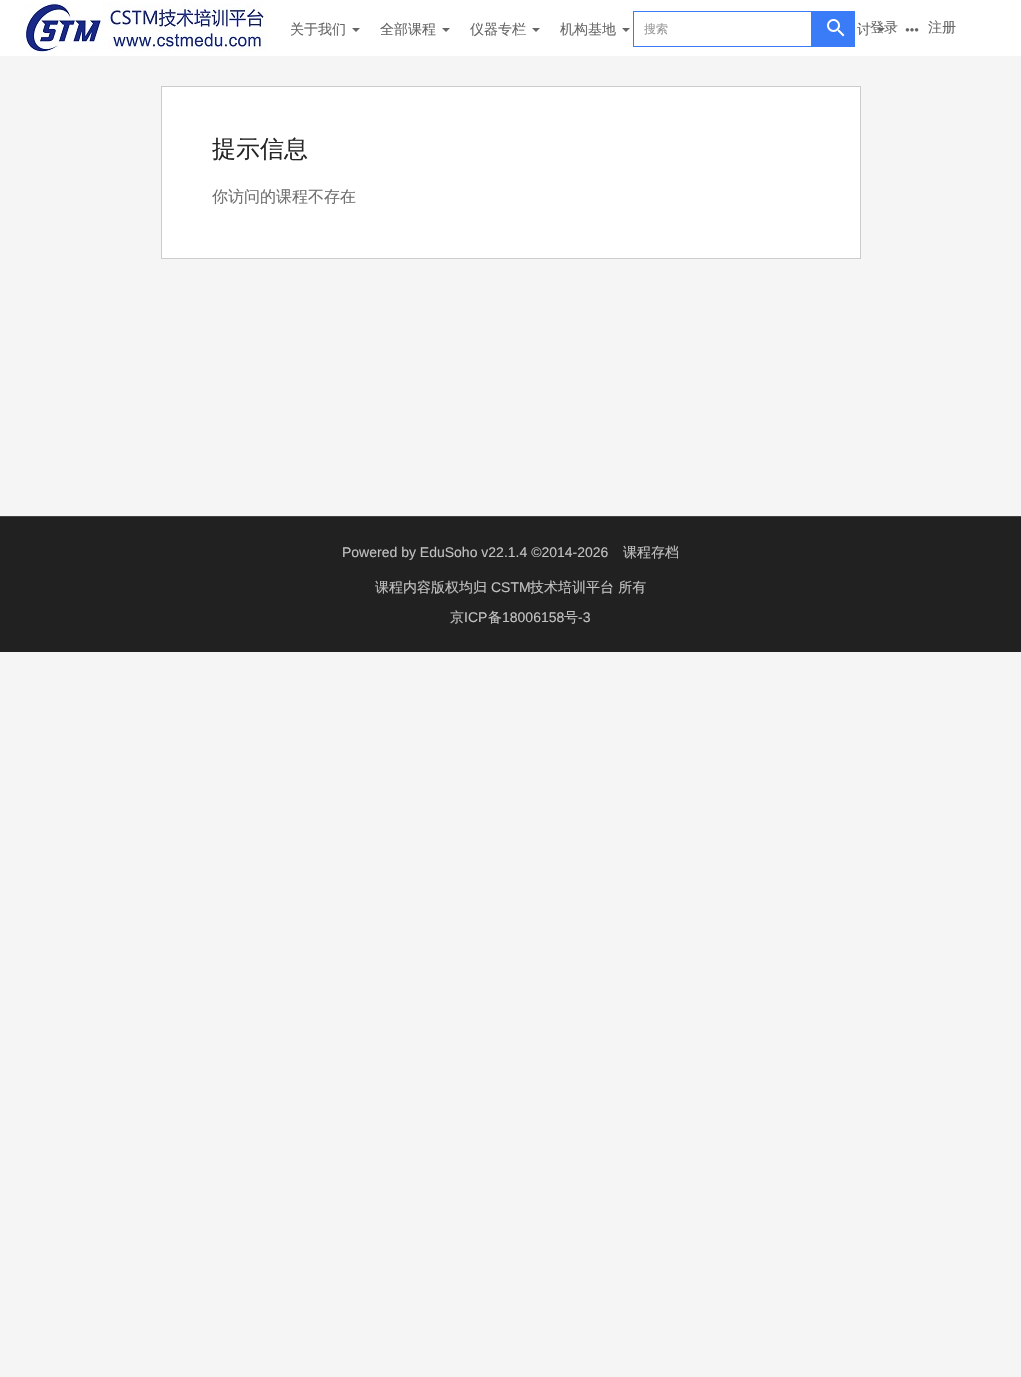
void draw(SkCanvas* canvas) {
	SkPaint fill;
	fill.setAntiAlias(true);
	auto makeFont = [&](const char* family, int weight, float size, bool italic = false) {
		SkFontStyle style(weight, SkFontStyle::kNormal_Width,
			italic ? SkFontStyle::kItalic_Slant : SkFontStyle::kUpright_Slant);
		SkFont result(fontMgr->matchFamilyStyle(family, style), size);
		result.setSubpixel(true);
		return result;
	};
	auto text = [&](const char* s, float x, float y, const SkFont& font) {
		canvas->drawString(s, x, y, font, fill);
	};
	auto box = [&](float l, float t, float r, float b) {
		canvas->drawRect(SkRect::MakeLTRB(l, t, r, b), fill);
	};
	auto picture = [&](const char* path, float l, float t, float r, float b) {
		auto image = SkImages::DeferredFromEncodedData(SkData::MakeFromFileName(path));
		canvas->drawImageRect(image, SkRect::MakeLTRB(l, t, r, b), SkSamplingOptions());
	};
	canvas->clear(0xFFF5F5F5);
	fill.setColor(0xFFFFFFFF);
	box(0, 0, 1021, 56);
	picture("image0.png", 20, 3, 270, 52);
	fill.setStyle(SkPaint::kStroke_Style);
	fill.setStrokeWidth(1);
	fill.setColor(0xFF3A7BF7);
	canvas->drawRect(SkRect::MakeLTRB(633.5f, 11.5f, 854.5f, 46.5f), fill);
	fill.setStyle(SkPaint::kFill_Style);
	box(811, 12, 854, 46);
	picture("image1.png", 827, 19, 845, 37);
	fill.setColor(0xFF666666);
	canvas->drawPath(SkPathBuilder().moveTo(352, 28).lineTo(360, 28).lineTo(356, 32).close().detach(), fill);
	canvas->drawPath(SkPathBuilder().moveTo(442, 28).lineTo(450, 28).lineTo(446, 32).close().detach(), fill);
	canvas->drawPath(SkPathBuilder().moveTo(532, 28).lineTo(540, 28).lineTo(536, 32).close().detach(), fill);
	canvas->drawPath(SkPathBuilder().moveTo(622, 28).lineTo(630, 28).lineTo(626, 32).close().detach(), fill);
	canvas->drawPath(SkPathBuilder().moveTo(877, 28).lineTo(885, 28).lineTo(881, 32).close().detach(), fill);
	picture("image2.png", 905, 28, 919, 32);
	fill.setColor(0xFFFFFFFF);
	canvas->drawRect(SkRect::MakeLTRB(161.5f, 86.5f, 860.5f, 258.5f), fill);
	fill.setStyle(SkPaint::kStroke_Style);
	fill.setColor(0xFFCCCCCC);
	canvas->drawRect(SkRect::MakeLTRB(161.5f, 86.5f, 860.5f, 258.5f), fill);
	fill.setStyle(SkPaint::kFill_Style);
	fill.setColor(0xFF212121);
	box(0, 517, 1021, 652);
	fill.setColor(0xFF444444);
	box(0, 516, 1021, 517);
	auto font1 = makeFont("WenQuanYi Zen Hei", 500, 12);
	fill.setColor(0xFF999999);
	text("搜索", 644, 33, font1);
	auto font2 = makeFont("WenQuanYi Zen Hei", 500, 14);
	fill.setColor(0xFF666666);
	text("注册", 928, 32, font2);
	text("关于我们", 290, 34, font2);
	text("全部课程", 380, 34, font2);
	text("仪器专栏", 470, 34, font2);
	text("机构基地", 560, 34, font2);
	text("讨", 857, 34, font2);
	text("登录", 870, 32, font2);
	auto font3 = makeFont("WenQuanYi Zen Hei", 500, 24);
	fill.setColor(0xFF262626);
	text("提示信息", 212, 157, font3);
	auto font4 = makeFont("WenQuanYi Zen Hei", 500, 16);
	fill.setColor(0xFF707070);
	text("你访问的课程不存在", 212, 202, font4);
	auto font5 = makeFont("Liberation Sans", 400, 14);
	fill.setColor(0xFFC1C1C1);
	text("Powered by EduSoho v22.1.4 ©2014-2026", 342, 557, font5);
	text("课程存档", 623, 557, font2);
	text("课程内容版权均归", 375, 592, font2);
	text("CSTM", 491, 592, font5);
	text("技术培训平台 所有", 530, 592, font2);
	text("京", 450, 622, font2);
	text("ICP", 464, 622, font5);
	text("备", 488, 622, font2);
	text("18006158", 502, 622, font5);
	text("号", 564, 622, font2);
	text("-3", 578, 622, font5);
}
